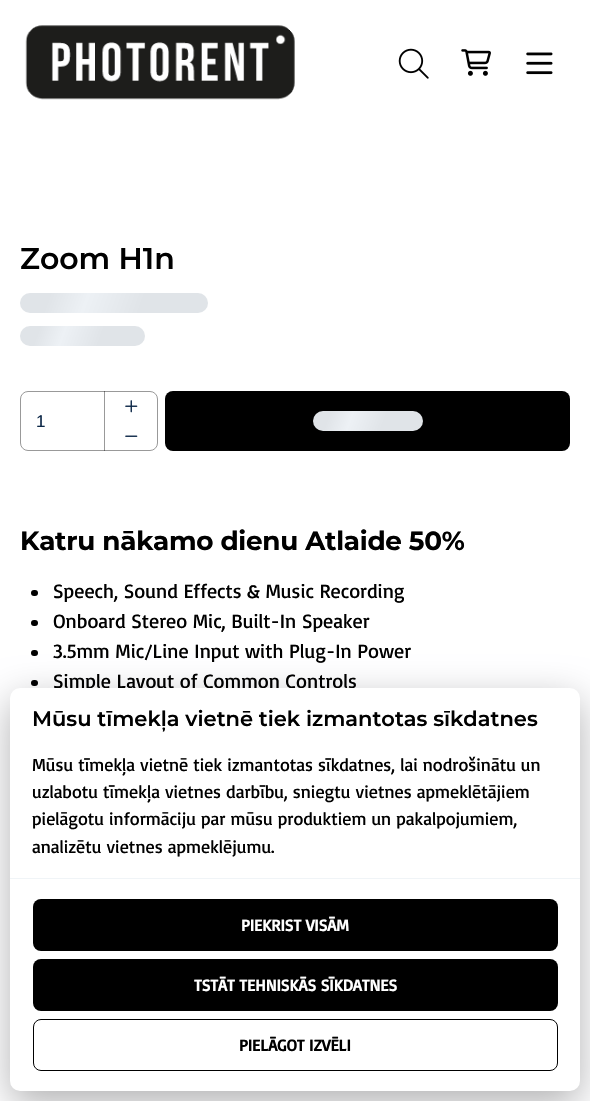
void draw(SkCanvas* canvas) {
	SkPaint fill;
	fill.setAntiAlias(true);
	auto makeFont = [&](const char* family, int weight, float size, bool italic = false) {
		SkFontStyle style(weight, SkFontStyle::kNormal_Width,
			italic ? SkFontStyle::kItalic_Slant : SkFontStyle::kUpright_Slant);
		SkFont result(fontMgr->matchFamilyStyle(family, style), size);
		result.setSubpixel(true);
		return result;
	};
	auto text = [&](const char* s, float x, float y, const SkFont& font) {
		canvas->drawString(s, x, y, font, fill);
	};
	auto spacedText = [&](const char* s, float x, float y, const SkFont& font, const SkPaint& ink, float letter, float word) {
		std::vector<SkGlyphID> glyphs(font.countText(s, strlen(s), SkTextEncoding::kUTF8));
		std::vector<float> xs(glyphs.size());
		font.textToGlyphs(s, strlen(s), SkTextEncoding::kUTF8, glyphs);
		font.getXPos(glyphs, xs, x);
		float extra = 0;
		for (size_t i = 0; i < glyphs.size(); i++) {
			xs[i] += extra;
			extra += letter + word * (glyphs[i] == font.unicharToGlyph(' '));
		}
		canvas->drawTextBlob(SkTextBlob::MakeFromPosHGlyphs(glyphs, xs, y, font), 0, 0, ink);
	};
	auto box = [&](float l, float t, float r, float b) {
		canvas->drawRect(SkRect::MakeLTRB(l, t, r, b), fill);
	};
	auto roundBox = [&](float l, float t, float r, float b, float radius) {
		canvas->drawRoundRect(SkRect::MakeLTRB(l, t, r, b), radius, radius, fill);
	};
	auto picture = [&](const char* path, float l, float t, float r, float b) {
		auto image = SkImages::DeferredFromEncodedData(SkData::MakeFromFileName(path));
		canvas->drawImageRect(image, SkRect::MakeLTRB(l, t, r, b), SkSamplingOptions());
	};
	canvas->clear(0xFFFFFFFF);
	picture("image0.png", 25, 25, 295, 100);
	picture("image1.png", 398, 48, 429, 79);
	picture("image2.png", 461, 49, 491, 76);
	picture("image3.png", 526, 52, 553, 75);
	{
		const SkColor colors[] = {0xFFE0E4E8, 0xFFEDF1F5, 0xFFE0E4E8};
		const float stops[] = {0.08f, 0.18f, 0.33f};
		const SkPoint ends[] = {{39, 241}, {376, 364}};
		fill.setShader(SkGradientShader::MakeLinear(ends, colors, stops, 3, SkTileMode::kClamp));
		fill.setAlpha(255);
	}
	roundBox(20, 293, 208, 313, 10);
	{
		const SkColor colors[] = {0xFFE0E4E8, 0xFFEDF1F5, 0xFFE0E4E8};
		const float stops[] = {0.08f, 0.18f, 0.33f};
		const SkPoint ends[] = {{31, 295}, {259, 378}};
		fill.setShader(SkGradientShader::MakeLinear(ends, colors, stops, 3, SkTileMode::kClamp));
		fill.setAlpha(255);
	}
	roundBox(20, 326, 145, 346, 10);
	fill.setStyle(SkPaint::kStroke_Style);
	fill.setStrokeWidth(1);
	fill.setShader(nullptr);
	fill.setColor(0xFF999999);
	canvas->drawRoundRect(SkRect::MakeLTRB(20.5f, 391.5f, 157.5f, 450.5f), 7.5f, 7.5f, fill);
	fill.setStyle(SkPaint::kFill_Style);
	fill.setColor(0x66000000);
	box(104, 391, 105, 451);
	picture("image4.png", 125, 400, 138, 413);
	picture("image5.png", 125, 435, 138, 437);
	fill.setColor(0xFF000000);
	roundBox(165, 391, 570, 451, 8);
	{
		const SkColor colors[] = {0xFFE0E4E8, 0xFFEDF1F5, 0xFFE0E4E8};
		const float stops[] = {0.08f, 0.18f, 0.33f};
		const SkPoint ends[] = {{322, 385}, {523, 458}};
		fill.setShader(SkGradientShader::MakeLinear(ends, colors, stops, 3, SkTileMode::kClamp));
		fill.setAlpha(255);
	}
	roundBox(313, 411, 423, 431, 10);
	fill.setShader(nullptr);
	fill.setColor(0xFF000000);
	roundBox(31, 590, 38, 596, 3);
	roundBox(31, 620, 38, 626, 3);
	roundBox(31, 650, 38, 656, 3);
	roundBox(31, 680, 38, 686, 3);
	fill.setColor(0x4D000002);
	fill.setMaskFilter(SkMaskFilter::MakeBlur(kNormal_SkBlurStyle, 19));
	canvas->drawRoundRect(SkRect::MakeLTRB(10, 700, 580, 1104), 10, 10, fill);
	fill.setMaskFilter(nullptr);
	auto font1 = makeFont("Montserrat", 100, 30);
	fill.setColor(0xFF000000);
	text("Zoom H1n", 20, 269, font1);
	auto font2 = makeFont("Liberation Sans", 400, 17);
	fill.setColor(0xFF0C2747);
	text("1", 36, 427, font2);
	auto font3 = makeFont("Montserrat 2", 100, 26.25f);
	fill.setColor(0xFF000000);
	spacedText("Katru nākamo dienu Atlaide 50%", 20, 550, font3, fill, -0.25f, 0);
	auto font4 = makeFont("Basic", 400, 20);
	text("Speech, Sound Effects & Music Recording", 53, 598, font4);
	text("Onboard Stereo Mic, Built-In Speaker", 53, 628, font4);
	text("3.5mm Mic/Line Input with Plug-In Power", 53, 658, font4);
	text("Simple Layout of Common Controls", 53, 688, font4);
	fill.setColor(0xFFFFFFFF);
	roundBox(10, 688, 580, 1091, 10);
	auto font5 = makeFont("Montserrat", 100, 21);
	fill.setColor(0xFF000000);
	text("Mūsu tīmekļa vietnē tiek izmantotas sīkdatnes", 32, 726, font5);
	auto font6 = makeFont("Basic", 400, 18);
	text("Mūsu tīmekļa vietnē tiek izmantotas sīkdatnes, lai nodrošinātu un", 32, 771, font6);
	text("uzlabotu tīmekļa vietnes darbību, sniegtu vietnes apmeklētājiem", 32, 798, font6);
	text("pielāgotu informāciju par mūsu produktiem un pakalpojumiem,", 32, 825, font6);
	text("analizētu vietnes apmeklējumu.", 32, 853, font6);
	fill.setColor(0xFFF0F4F7);
	box(10, 878, 580, 879);
	fill.setColor(0xFF000000);
	roundBox(33, 899, 558, 951, 8);
	auto font7 = makeFont("Basic", 700, 16.4f);
	fill.setColor(0xFFFFFFFF);
	text("PIEKRIST VISĀM", 241, 931, font7);
	fill.setColor(0xFF000000);
	roundBox(33, 959, 558, 1011, 8);
	fill.setColor(0xFFFFFFFF);
	text("TSTĀT TEHNISKĀS SĪKDATNES", 194, 991, font7);
	fill.setStyle(SkPaint::kStroke_Style);
	fill.setColor(0xFF000000);
	canvas->drawRoundRect(SkRect::MakeLTRB(33.5f, 1019.5f, 557.5f, 1070.5f), 7.5f, 7.5f, fill);
	fill.setStyle(SkPaint::kFill_Style);
	text("PIELĀGOT IZVĒLI", 239, 1051, font7);
}
